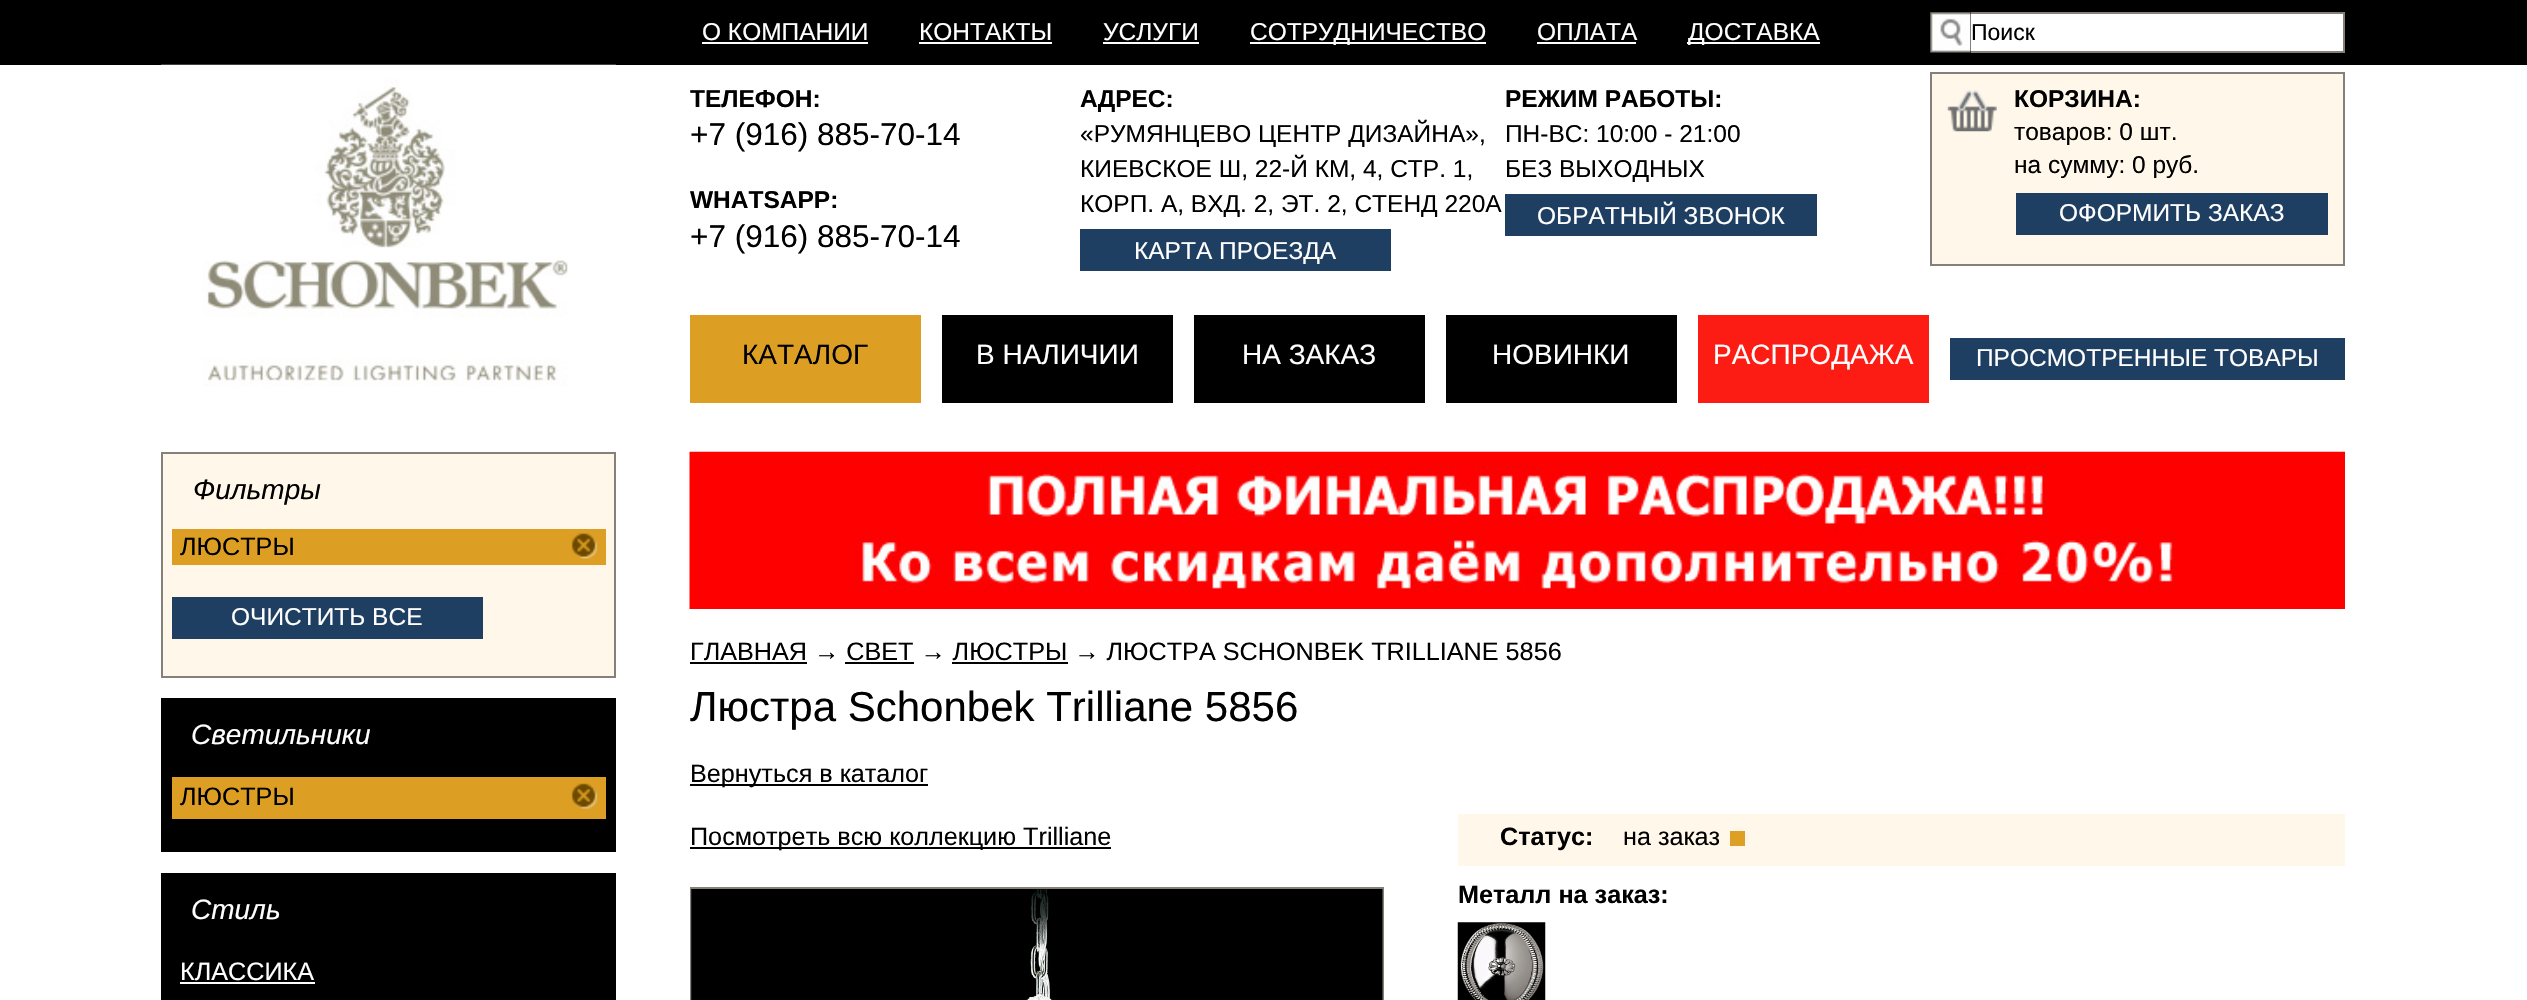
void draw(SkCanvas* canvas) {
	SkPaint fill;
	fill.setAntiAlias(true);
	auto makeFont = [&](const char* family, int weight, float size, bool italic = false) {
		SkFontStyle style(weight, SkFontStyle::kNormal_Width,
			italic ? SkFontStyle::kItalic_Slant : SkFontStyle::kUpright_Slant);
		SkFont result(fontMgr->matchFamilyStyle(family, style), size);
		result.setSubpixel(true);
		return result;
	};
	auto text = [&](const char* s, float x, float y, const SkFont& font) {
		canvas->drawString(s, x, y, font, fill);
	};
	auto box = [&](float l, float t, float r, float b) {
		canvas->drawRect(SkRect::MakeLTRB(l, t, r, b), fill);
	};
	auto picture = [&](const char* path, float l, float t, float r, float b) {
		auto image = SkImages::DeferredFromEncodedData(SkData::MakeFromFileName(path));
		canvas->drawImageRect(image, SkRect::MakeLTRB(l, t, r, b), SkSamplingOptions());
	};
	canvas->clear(0xFFFFFFFF);
	fill.setColor(0xFF000000);
	box(0, 0, 2527, 65);
	fill.setColor(0xFFFFFFFF);
	box(702, 42, 868, 44);
	box(919, 42, 1052, 44);
	box(1103, 42, 1199, 44);
	box(1250, 42, 1486, 44);
	box(1537, 42, 1636, 44);
	box(1687, 42, 1820, 44);
	picture("image0.png", 1930, 12, 1971, 53);
	box(1971, 14, 2343, 51);
	fill.setColor(0xFF85817A);
	box(1971, 12, 2345, 14);
	box(2343, 12, 2345, 53);
	box(1971, 51, 2345, 53);
	picture("image1.png", 161, 64, 616, 387);
	fill.setColor(0xFF1E3E62);
	box(1080, 229, 1391, 271);
	box(1505, 194, 1817, 236);
	fill.setColor(0xFFDD9F23);
	box(690, 315, 921, 403);
	fill.setColor(0xFF000000);
	box(942, 315, 1173, 403);
	box(1194, 315, 1425, 403);
	box(1446, 315, 1677, 403);
	fill.setColor(0xFFFC1C14);
	box(1698, 315, 1929, 403);
	fill.setColor(0xFFFFF7E9);
	canvas->drawRect(SkRect::MakeLTRB(1931, 73, 2344, 265), fill);
	fill.setStyle(SkPaint::kStroke_Style);
	fill.setStrokeWidth(2);
	fill.setColor(0xFF85817A);
	canvas->drawRect(SkRect::MakeLTRB(1931, 73, 2344, 265), fill);
	picture("image2.png", 1947, 89, 1997, 132);
	fill.setStyle(SkPaint::kFill_Style);
	fill.setColor(0xFF1E3E62);
	box(2016, 193, 2328, 235);
	box(1950, 338, 2345, 380);
	fill.setColor(0xFFFFF7E9);
	box(163, 454, 614, 676);
	fill.setColor(0xFF85817A);
	box(161, 452, 616, 454);
	box(614, 452, 616, 677);
	box(161, 452, 163, 571);
	fill.setColor(0xFFDD9F23);
	box(172, 529, 606, 565);
	picture("image3.png", 571, 533, 598, 559);
	fill.setColor(0xFF85817A);
	box(161, 676, 616, 678);
	box(161, 571, 163, 677);
	fill.setColor(0xFF1E3E62);
	box(172, 597, 483, 639);
	fill.setColor(0xFF000000);
	box(161, 698, 616, 852);
	fill.setColor(0xFFDD9F23);
	box(172, 777, 606, 819);
	picture("image4.png", 571, 783, 598, 809);
	fill.setColor(0xFF000000);
	box(161, 873, 616, 1000);
	fill.setColor(0xFFFFFFFF);
	box(180, 982, 315, 984);
	picture("image5.png", 689, 451, 2345, 609);
	fill.setColor(0xFF000000);
	box(690, 662, 807, 664);
	box(845, 662, 914, 664);
	box(952, 662, 1068, 664);
	box(690, 784, 928, 786);
	box(690, 847, 1111, 849);
	fill.setStyle(SkPaint::kStroke_Style);
	fill.setColor(0xFF85817A);
	canvas->drawRect(SkRect::MakeLTRB(691, 888, 1383, 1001), fill);
	picture("image6.png", 691, 889, 1383, 1000);
	fill.setStyle(SkPaint::kFill_Style);
	fill.setColor(0xFFFFF7E9);
	box(1458, 814, 2345, 866);
	fill.setColor(0xFFDD9F24);
	box(1730, 831, 1745, 846);
	picture("image7.png", 1457, 922, 1546, 1000);
	auto font1 = makeFont("Liberation Sans", 400, 24.5f);
	fill.setColor(0xFFFFFFFF);
	text("О КОМПАНИИ", 702, 40, font1);
	text("КОНТАКТЫ", 919, 40, font1);
	text("УСЛУГИ", 1103, 40, font1);
	text("СОТРУДНИЧЕСТВО", 1250, 40, font1);
	text("ОПЛАТА", 1537, 40, font1);
	text("ДОСТАВКА", 1688, 40, font1);
	auto font2 = makeFont("Liberation Sans", 400, 23);
	fill.setColor(0xFF000000);
	text("Поиск", 1971, 40, font2);
	auto font3 = makeFont("Liberation Sans", 700, 24.5f);
	text("ТЕЛЕФОН:", 690, 107, font3);
	auto font4 = makeFont("Liberation Sans", 400, 31.5f);
	text("+7 (916) 885-70-14", 690, 145, font4);
	text("WHATSAPP:", 690, 208, font3);
	text("+7 (916) 885-70-14", 690, 247, font4);
	text("АДРЕС:", 1080, 107, font3);
	text("«РУМЯНЦЕВО ЦЕНТР ДИЗАЙНА»,", 1080, 142, font1);
	text("КИЕВСКОЕ Ш, 22-Й КМ, 4, СТР. 1,", 1080, 177, font1);
	text("КОРП. А, ВХД. 2, ЭТ. 2, СТЕНД 220А", 1080, 212, font1);
	fill.setColor(0xFFFFFFFF);
	text("КАРТА ПРОЕЗДА", 1134, 259, font1);
	fill.setColor(0xFF000000);
	text("РЕЖИМ РАБОТЫ:", 1505, 107, font3);
	text("ПН-ВС: 10:00 - 21:00", 1505, 142, font1);
	text("БЕЗ ВЫХОДНЫХ", 1505, 177, font1);
	fill.setColor(0xFFFFFFFF);
	text("ОБРАТНЫЙ ЗВОНОК", 1537, 224, font1);
	auto font5 = makeFont("Liberation Sans", 400, 28);
	fill.setColor(0xFF000000);
	text("КАТАЛОГ", 742, 364, font5);
	fill.setColor(0xFFFFFFFF);
	text("В НАЛИЧИИ", 976, 364, font5);
	text("НА ЗАКАЗ", 1242, 364, font5);
	text("НОВИНКИ", 1492, 364, font5);
	text("РАСПРОДАЖА", 1713, 364, font5);
	fill.setColor(0xFF000000);
	text("КОРЗИНА:", 2014, 107, font3);
	text("товаров: 0 шт.", 2014, 140, font1);
	text("на сумму: 0 руб.", 2014, 173, font1);
	fill.setColor(0xFFFFFFFF);
	text("ОФОРМИТЬ ЗАКАЗ", 2059, 221, font1);
	text("ПРОСМОТРЕННЫЕ ТОВАРЫ", 1976, 366, font1);
	auto font6 = makeFont("Liberation Sans", 400, 28, true);
	fill.setColor(0xFF000000);
	text("Фильтры", 193, 499, font6);
	auto font7 = makeFont("Liberation Sans", 400, 25.2f);
	text("ЛЮСТРЫ", 180, 555, font7);
	fill.setColor(0xFFFFFFFF);
	text("ОЧИСТИТЬ ВСЕ", 231, 625, font1);
	text("Светильники", 191, 744, font6);
	fill.setColor(0xFF000000);
	text("ЛЮСТРЫ", 180, 805, font7);
	fill.setColor(0xFFFFFFFF);
	text("Стиль", 191, 919, font6);
	text("КЛАССИКА", 180, 980, font7);
	fill.setColor(0xFF000000);
	text("ГЛАВНАЯ → СВЕТ → ЛЮСТРЫ → ЛЮСТРА SCHONBEK TRILLIANE 5856", 690, 660, font7);
	auto font8 = makeFont("Liberation Sans", 400, 42);
	text("Люстра Schonbek Trilliane 5856", 690, 721, font8);
	text("Вернуться в каталог", 690, 782, font7);
	text("Посмотреть всю коллекцию Trilliane", 690, 845, font7);
	auto font9 = makeFont("Liberation Sans", 700, 25.2f);
	text("Статус:", 1500, 845, font9);
	text("на заказ", 1623, 845, font7);
	text("Металл на заказ:", 1458, 903, font9);
}
